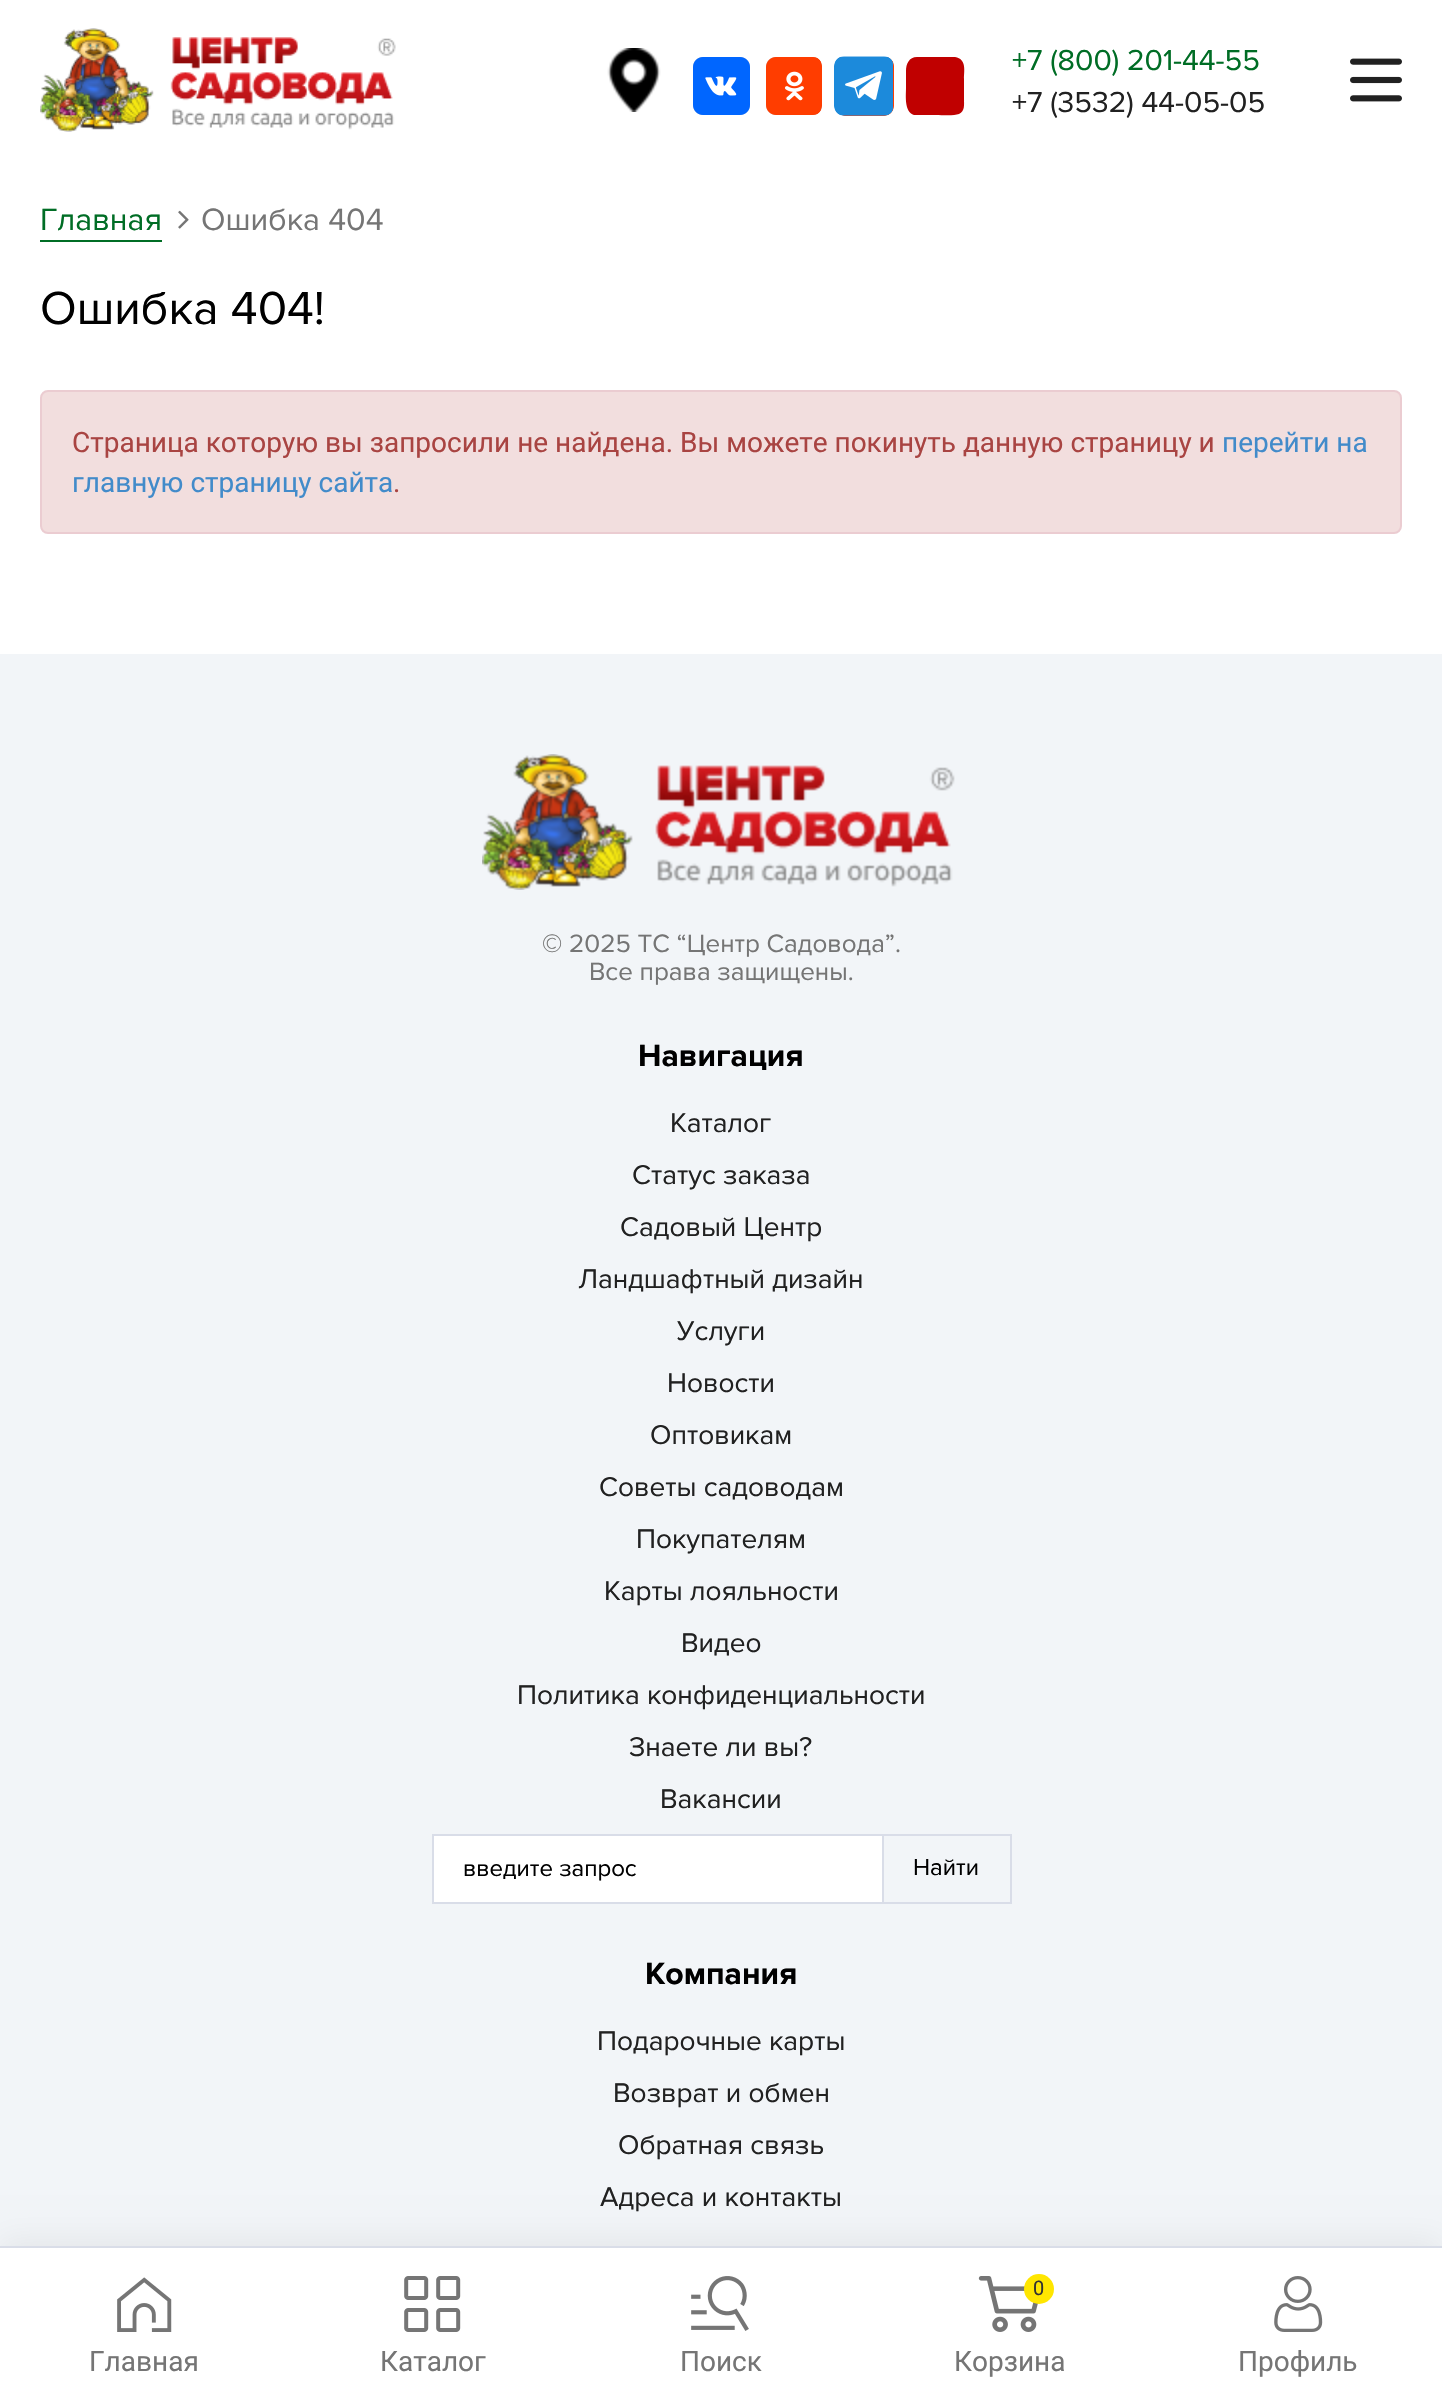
void draw(SkCanvas* canvas) {
	SkPaint fill;
	fill.setAntiAlias(true);
	auto makeFont = [&](const char* family, int weight, float size, bool italic = false) {
		SkFontStyle style(weight, SkFontStyle::kNormal_Width,
			italic ? SkFontStyle::kItalic_Slant : SkFontStyle::kUpright_Slant);
		SkFont result(fontMgr->matchFamilyStyle(family, style), size);
		result.setSubpixel(true);
		return result;
	};
	auto text = [&](const char* s, float x, float y, const SkFont& font) {
		canvas->drawString(s, x, y, font, fill);
	};
	auto box = [&](float l, float t, float r, float b) {
		canvas->drawRect(SkRect::MakeLTRB(l, t, r, b), fill);
	};
	auto picture = [&](const char* path, float l, float t, float r, float b) {
		auto image = SkImages::DeferredFromEncodedData(SkData::MakeFromFileName(path));
		canvas->drawImageRect(image, SkRect::MakeLTRB(l, t, r, b), SkSamplingOptions());
	};
	canvas->clear(0xFFFFFFFF);
	picture("image0.png", 40, 28, 396, 132);
	picture("image1.png", 607, 48, 661, 112);
	picture("image2.png", 693, 57, 750, 115);
	picture("image3.png", 766, 57, 822, 115);
	picture("image4.png", 834, 56, 894, 116);
	fill.setColor(0xFFC00000);
	canvas->drawPath(SkPathBuilder().moveTo(917, 57).cubicTo(909, 57, 906, 64, 906, 71).lineTo(906, 88).cubicTo(906, 95, 904, 112, 914, 115).lineTo(936, 115).cubicTo(942, 115, 954, 116, 959, 114).cubicTo(965, 111, 964, 105, 964, 99).lineTo(964, 79).cubicTo(964, 71, 967, 59, 955, 57).close().detach(), fill);
	picture("image5.png", 1350, 58, 1402, 102);
	fill.setColor(0xFF006D25);
	box(40, 240, 162, 242);
	picture("image6.png", 178, 210, 189, 229);
	fill.setColor(0xFFF2DEDE);
	canvas->drawRoundRect(SkRect::MakeLTRB(41, 391, 1401, 533), 7, 7, fill);
	fill.setStyle(SkPaint::kStroke_Style);
	fill.setStrokeWidth(2);
	fill.setColor(0xFFEBCCD1);
	canvas->drawRoundRect(SkRect::MakeLTRB(41, 391, 1401, 533), 7, 7, fill);
	fill.setStyle(SkPaint::kFill_Style);
	fill.setColor(0xFFF2F5F8);
	box(0, 654, 1442, 2246);
	fill.setColor(0x0F000000);
	fill.setMaskFilter(SkMaskFilter::MakeBlur(kNormal_SkBlurStyle, 15));
	canvas->drawRect(SkRect::MakeLTRB(0, 2240, 1442, 2390), fill);
	fill.setMaskFilter(nullptr);
	fill.setColor(0xFFFFFFFF);
	box(0, 2248, 1442, 2396);
	fill.setColor(0xFFD9DDE8);
	box(0, 2246, 1442, 2248);
	picture("image7.png", 117, 2277, 172, 2332);
	picture("image8.png", 404, 2276, 461, 2332);
	picture("image9.png", 691, 2276, 749, 2331);
	picture("image10.png", 978, 2276, 1038, 2332);
	fill.setColor(0xFFFFE600);
	canvas->drawCircle(1039, 2289, 15, fill);
	picture("image11.png", 1274, 2276, 1323, 2332);
	picture("image12.png", 482, 754, 955, 890);
	fill.setColor(0xFFFFFFFF);
	canvas->drawRect(SkRect::MakeLTRB(433, 1835, 883, 1903), fill);
	fill.setStyle(SkPaint::kStroke_Style);
	fill.setColor(0xFFD9DDE8);
	canvas->drawRect(SkRect::MakeLTRB(433, 1835, 883, 1903), fill);
	fill.setStyle(SkPaint::kFill_Style);
	box(884, 1834, 1012, 1836);
	box(1010, 1834, 1012, 1904);
	box(884, 1902, 1012, 1904);
	auto font1 = makeFont("Proxima Nova", 400, 30);
	fill.setColor(0xFF006D25);
	text("+7 (800) 201-44-55", 1012, 70, font1);
	fill.setColor(0xFF212121);
	text("+7 (3532) 44-05-05", 1012, 112, font1);
	auto font2 = makeFont("Proxima Nova", 400, 32);
	fill.setColor(0xFF006D25);
	text("Главная", 40, 230, font2);
	fill.setColor(0xFF757575);
	text("Ошибка 404", 201, 230, font2);
	auto font3 = makeFont("Proxima Nova", 400, 48);
	fill.setColor(0xFF000000);
	text("Ошибка 404!", 40, 324, font3);
	auto font4 = makeFont("Roboto", 400, 28);
	fill.setColor(0xFFA94442);
	text("Страница которую вы запросили не найдена. Вы можете покинуть данную страницу и", 72, 452, font4);
	fill.setColor(0xFF428BCA);
	text("перейти на", 1222, 452, font4);
	text("главную страницу сайта", 72, 492, font4);
	fill.setColor(0xFFA94442);
	text(".", 393, 492, font4);
	fill.setColor(0xFF757575);
	text("Главная", 89, 2371, font4);
	text("Каталог", 380, 2371, font4);
	text("Поиск", 680, 2371, font4);
	auto font5 = makeFont("Roboto", 400, 20);
	fill.setColor(0xFF323232);
	text("0", 1033, 2295, font5);
	fill.setColor(0xFF757575);
	text("Корзина", 954, 2371, font4);
	text("Профиль", 1238, 2371, font4);
	auto font6 = makeFont("Proxima Nova", 400, 26);
	text("© 2025 ТС “Центр Садовода”.", 542, 952, font6);
	text("Все права защищены.", 589, 980, font6);
	auto font7 = makeFont("Proxima Nova", 700, 32);
	fill.setColor(0xFF000000);
	text("Навигация", 638, 1066, font7);
	auto font8 = makeFont("Proxima Nova", 400, 28);
	fill.setColor(0xFF212121);
	text("Каталог", 670, 1132, font8);
	text("Статус заказа", 632, 1184, font8);
	text("Садовый Центр", 620, 1236, font8);
	text("Ландшафтный дизайн", 578, 1288, font8);
	text("Услуги", 677, 1340, font8);
	text("Новости", 667, 1392, font8);
	text("Оптовикам", 650, 1444, font8);
	text("Советы садоводам", 599, 1496, font8);
	text("Покупателям", 636, 1548, font8);
	text("Карты лояльности", 604, 1600, font8);
	text("Видео", 681, 1652, font8);
	text("Политика конфиденциальности", 517, 1704, font8);
	text("Знаете ли вы?", 629, 1756, font8);
	text("Вакансии", 660, 1808, font8);
	auto font9 = makeFont("Proxima Nova", 400, 24);
	fill.setColor(0xFF000000);
	text("введите запрос", 463, 1876, font9);
	text("Найти", 913, 1875, font9);
	text("Компания", 645, 1984, font7);
	fill.setColor(0xFF212121);
	text("Подарочные карты", 597, 2050, font8);
	text("Возврат и обмен", 613, 2102, font8);
	text("Обратная связь", 618, 2154, font8);
	text("Адреса и контакты", 600, 2206, font8);
}
